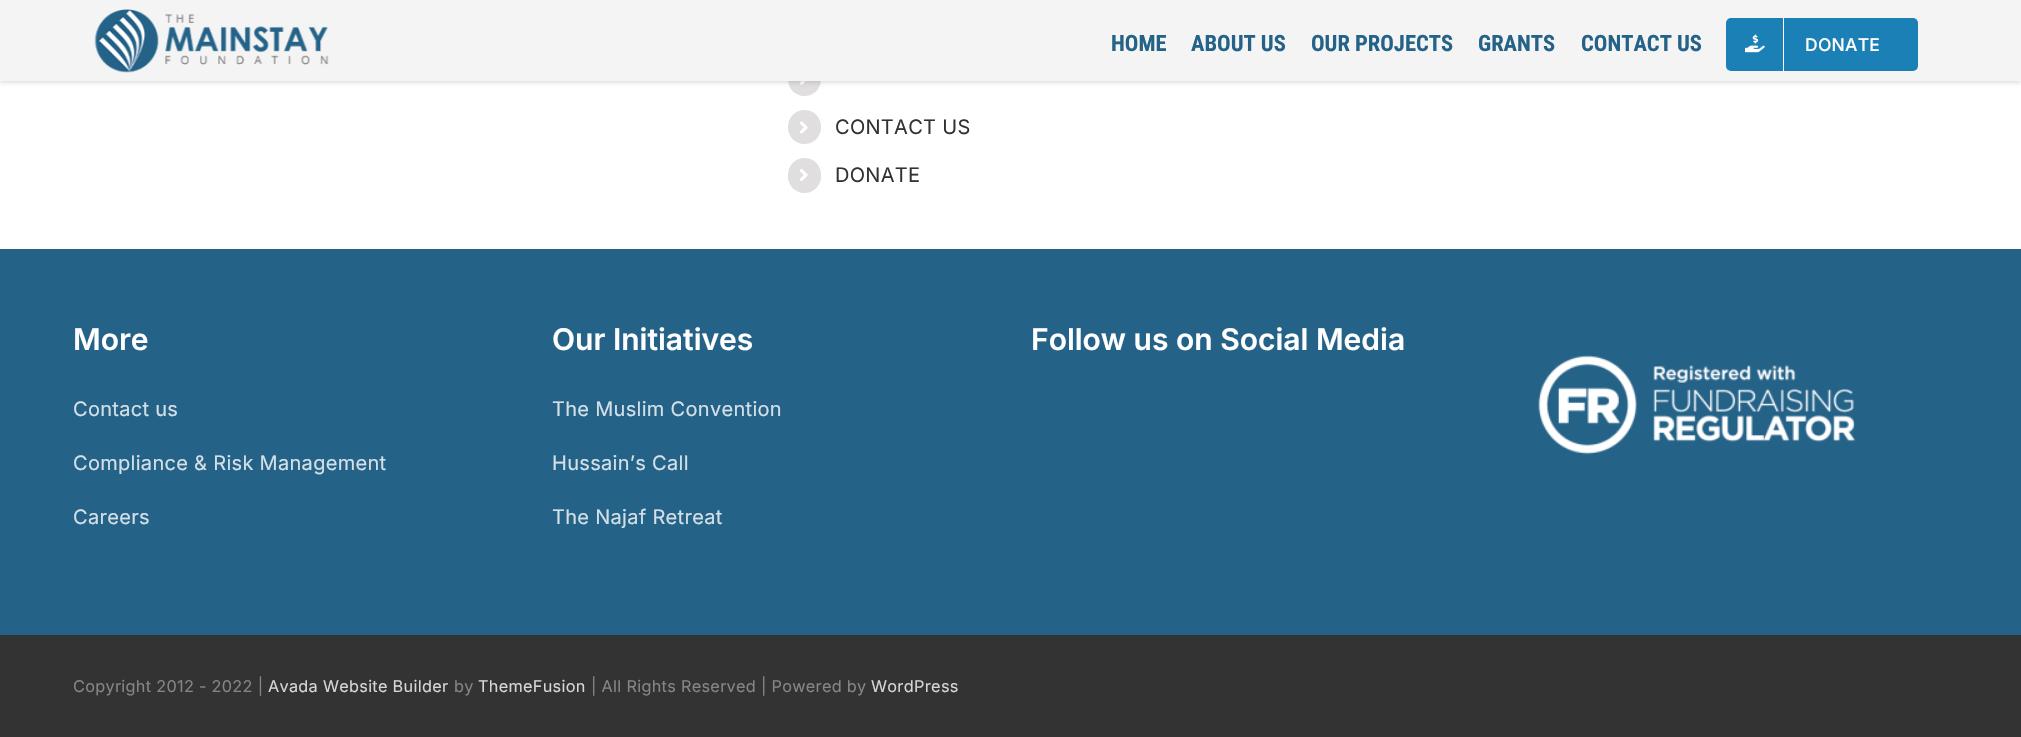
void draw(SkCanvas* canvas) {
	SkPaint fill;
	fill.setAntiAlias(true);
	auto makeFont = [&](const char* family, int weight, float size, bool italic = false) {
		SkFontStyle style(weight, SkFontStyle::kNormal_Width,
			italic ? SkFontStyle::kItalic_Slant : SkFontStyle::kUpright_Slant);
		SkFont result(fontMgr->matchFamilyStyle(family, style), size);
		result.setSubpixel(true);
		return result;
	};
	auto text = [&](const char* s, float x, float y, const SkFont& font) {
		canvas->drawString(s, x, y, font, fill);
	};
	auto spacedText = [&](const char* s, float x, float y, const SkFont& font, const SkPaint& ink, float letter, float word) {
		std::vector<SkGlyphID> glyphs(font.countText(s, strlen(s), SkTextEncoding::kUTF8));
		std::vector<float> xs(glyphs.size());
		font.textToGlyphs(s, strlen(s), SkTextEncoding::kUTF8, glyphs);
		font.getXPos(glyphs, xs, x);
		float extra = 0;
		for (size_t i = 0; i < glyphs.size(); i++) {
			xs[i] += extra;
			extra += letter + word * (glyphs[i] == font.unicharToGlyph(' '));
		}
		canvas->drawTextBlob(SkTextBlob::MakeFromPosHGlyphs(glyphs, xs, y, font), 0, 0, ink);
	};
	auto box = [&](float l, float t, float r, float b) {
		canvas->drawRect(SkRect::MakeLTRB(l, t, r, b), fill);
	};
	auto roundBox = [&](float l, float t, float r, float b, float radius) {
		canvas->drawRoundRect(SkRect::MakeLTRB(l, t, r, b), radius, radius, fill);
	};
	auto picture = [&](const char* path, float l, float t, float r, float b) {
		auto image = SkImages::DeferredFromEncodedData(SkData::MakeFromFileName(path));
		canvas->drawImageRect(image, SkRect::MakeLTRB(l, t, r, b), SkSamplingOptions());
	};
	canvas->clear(0xFFFFFFFF);
	fill.setColor(0xFFE0DEDE);
	canvas->drawCircle(804.5f, 79.5f, 16.5f, fill);
	picture("image2.png", 799, 81, 806, 85);
	fill.setColor(0x1F000000);
	fill.setMaskFilter(SkMaskFilter::MakeBlur(kNormal_SkBlurStyle, 2));
	canvas->drawRect(SkRect::MakeLTRB(0, 1, 2021, 83), fill);
	fill.setMaskFilter(nullptr);
	fill.setColor(0xFFF4F4F4);
	box(0, 0, 2021, 81);
	picture("image0.png", 94, 9, 329, 73);
	fill.setColor(0xFF1A80B6);
	roundBox(1726, 18, 1918, 71, 5);
	fill.setColor(0xFFFFFFFF);
	box(1783, 18, 1784, 71);
	picture("image1.png", 1745, 34, 1765, 53);
	fill.setColor(0xFFE0DEDE);
	roundBox(788, 110, 821, 144, 16.5f);
	picture("image3.png", 800, 121, 808, 134);
	roundBox(788, 158, 821, 193, 16.5f);
	picture("image4.png", 799, 168, 808, 182);
	fill.setColor(0xFF246288);
	box(0, 249, 2021, 635);
	picture("image5.png", 1538, 355, 1856, 455);
	fill.setColor(0xFF333333);
	box(0, 635, 2021, 737);
	auto font1 = makeFont("Roboto Condensed", 700, 22.5f);
	fill.setColor(0xFF246288);
	text("HOME", 1111, 51, font1);
	text("ABOUT US", 1191, 51, font1);
	text("OUR PROJECTS", 1311, 51, font1);
	text("GRANTS", 1478, 51, font1);
	text("CONTACT US", 1581, 51, font1);
	auto font2 = makeFont("Inter", 500, 17.5f);
	fill.setColor(0xFFFFFFFF);
	spacedText("DONATE", 1805, 51, font2, fill, 0.25f, 0);
	auto font3 = makeFont("Inter", 400, 20);
	fill.setColor(0xFF333333);
	spacedText("CONTACT US", 835, 134, font3, fill, 0.3f, 0);
	spacedText("DONATE", 835, 182, font3, fill, 0.3f, 0);
	auto font4 = makeFont("Inter", 600, 30);
	fill.setColor(0xFFFFFFFF);
	text("More", 73, 350, font4);
	fill.setColor(0xFFD3E0E7);
	spacedText("Contact us", 73, 416, font3, fill, 0.3f, 0);
	spacedText("Compliance & Risk Management", 73, 470, font3, fill, 0.3f, 0);
	spacedText("Careers", 73, 524, font3, fill, 0.3f, 0);
	fill.setColor(0xFFFFFFFF);
	text("Our Initiatives", 552, 350, font4);
	fill.setColor(0xFFD3E0E7);
	spacedText("The Muslim Convention", 552, 416, font3, fill, 0.3f, 0);
	spacedText("Hussain’s Call", 552, 470, font3, fill, 0.3f, 0);
	spacedText("The Najaf Retreat", 552, 524, font3, fill, 0.3f, 0);
	fill.setColor(0xFFFFFFFF);
	text("Follow us on Social Media", 1031, 350, font4);
	auto font5 = makeFont("Inter", 400, 16.25f);
	fill.setColor(0xFF858585);
	spacedText("Copyright 2012 - 2022 |", 73, 692, font5, fill, 0.3f, 0);
	fill.setColor(0xFFD6D6D6);
	spacedText("Avada Website Builder", 268, 692, font5, fill, 0.3f, 0);
	fill.setColor(0xFF858585);
	spacedText("by", 454, 692, font5, fill, 0.3f, 0);
	fill.setColor(0xFFD6D6D6);
	spacedText("ThemeFusion", 478, 692, font5, fill, 0.3f, 0);
	fill.setColor(0xFF858585);
	spacedText("| All Rights Reserved | Powered by", 591, 692, font5, fill, 0.3f, 0);
	fill.setColor(0xFFD6D6D6);
	spacedText("WordPress", 871, 692, font5, fill, 0.3f, 0);
}
